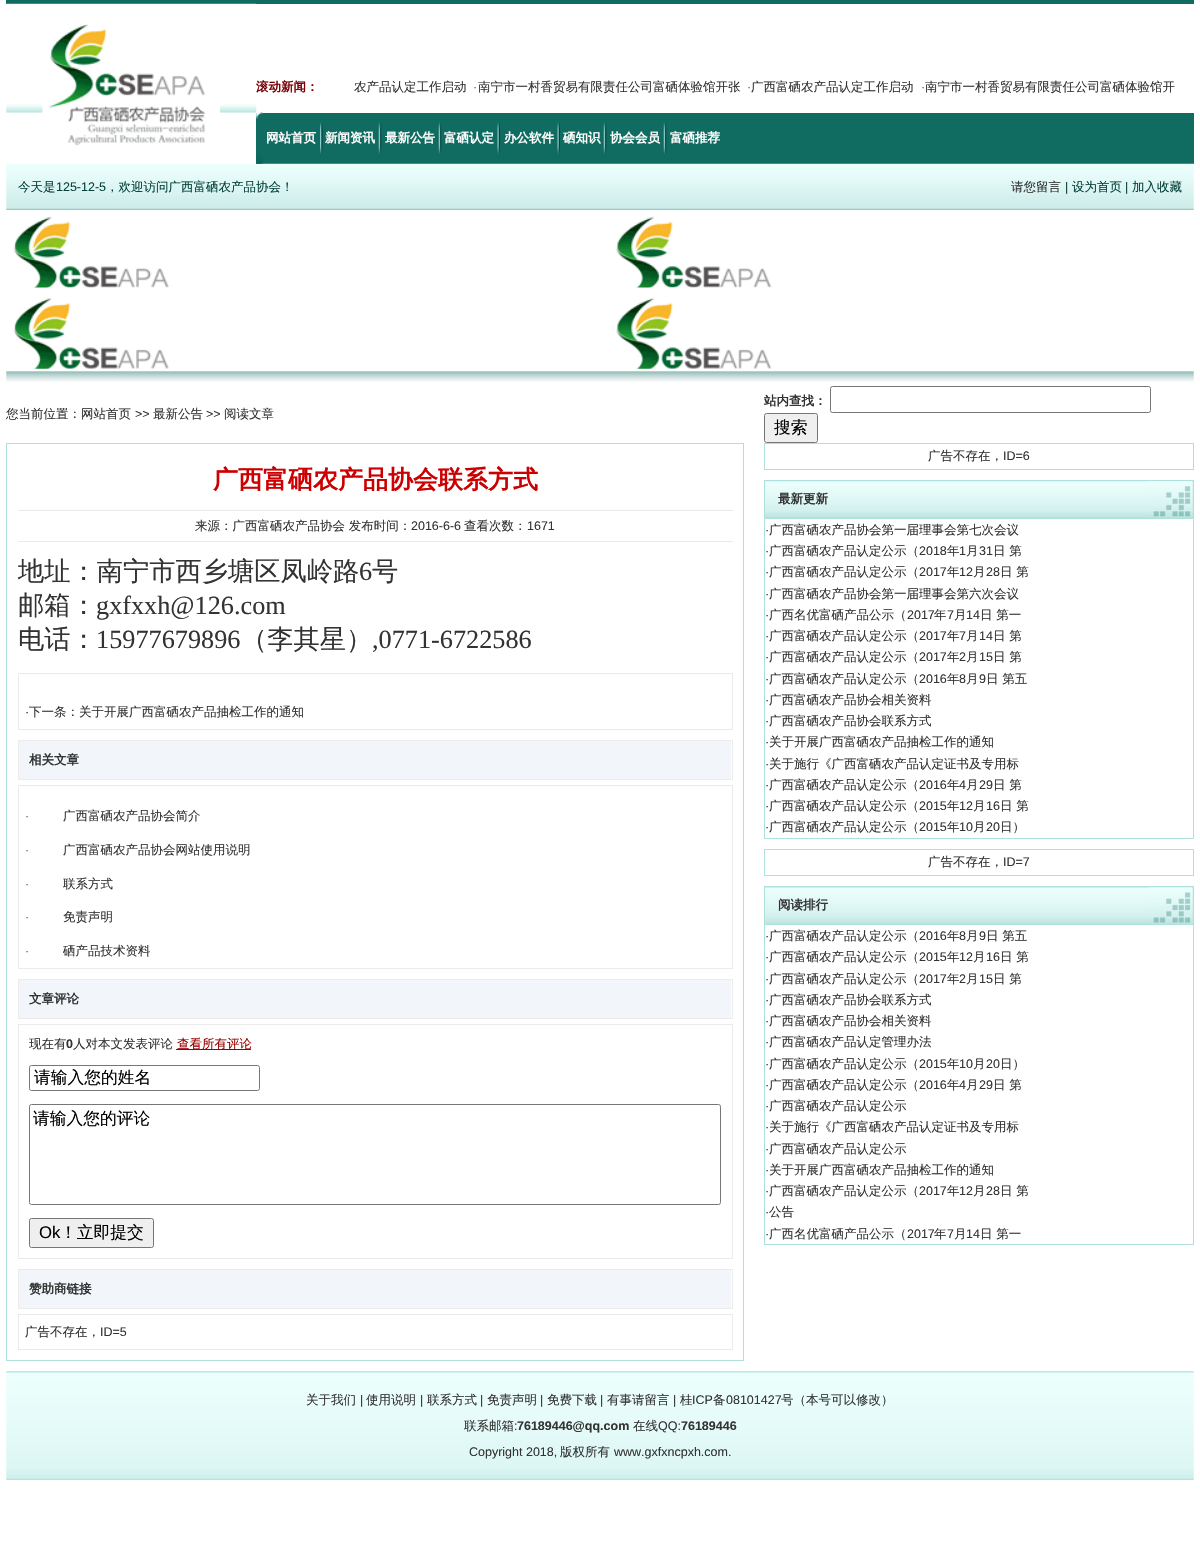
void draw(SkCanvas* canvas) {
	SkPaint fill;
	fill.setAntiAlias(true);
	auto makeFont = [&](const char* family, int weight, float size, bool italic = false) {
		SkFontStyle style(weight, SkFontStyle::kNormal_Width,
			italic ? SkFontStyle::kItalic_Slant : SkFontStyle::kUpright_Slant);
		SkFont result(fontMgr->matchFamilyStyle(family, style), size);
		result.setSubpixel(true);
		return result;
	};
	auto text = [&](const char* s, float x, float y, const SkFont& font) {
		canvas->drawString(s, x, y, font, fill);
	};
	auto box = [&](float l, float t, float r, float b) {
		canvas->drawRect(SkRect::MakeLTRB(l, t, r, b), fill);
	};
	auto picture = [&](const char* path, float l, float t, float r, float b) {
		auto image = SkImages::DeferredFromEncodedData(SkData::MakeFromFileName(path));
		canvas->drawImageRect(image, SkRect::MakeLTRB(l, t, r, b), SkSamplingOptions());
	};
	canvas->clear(0xFFFFFFFF);
	fill.setColor(0xFF106B61);
	box(6, 0, 1194, 4);
	picture("image0.png", 6, 3, 257, 113);
	picture("image1.png", 42, 24, 220, 146);
	box(256, 113, 1194, 164);
	picture("image6.png", 6, 163, 1194, 210);
	picture("image2.png", 256, 112, 263, 164);
	picture("image3.png", 320, 122, 323, 154);
	picture("image4.png", 378, 122, 382, 154);
	picture("image4.png", 438, 122, 442, 154);
	picture("image5.png", 497, 122, 500, 154);
	picture("image5.png", 557, 122, 560, 154);
	picture("image4.png", 603, 122, 607, 154);
	picture("image4.png", 663, 122, 667, 154);
	picture("image7.png", 13, 216, 169, 288);
	picture("image8.png", 616, 216, 772, 288);
	picture("image9.png", 13, 297, 169, 369);
	picture("image10.png", 616, 297, 772, 369);
	picture("image11.png", 6, 371, 1194, 382);
	fill.setStyle(SkPaint::kStroke_Style);
	fill.setStrokeWidth(1);
	fill.setColor(0xFF767676);
	canvas->drawRoundRect(SkRect::MakeLTRB(830.5f, 386.5f, 1150.5f, 412.5f), 2, 2, fill);
	fill.setStyle(SkPaint::kFill_Style);
	fill.setColor(0xFFEFEFEF);
	canvas->drawRoundRect(SkRect::MakeLTRB(764.5f, 413.5f, 817.5f, 442.5f), 2, 2, fill);
	fill.setStyle(SkPaint::kStroke_Style);
	fill.setColor(0xFF767676);
	canvas->drawRoundRect(SkRect::MakeLTRB(764.5f, 413.5f, 817.5f, 442.5f), 2, 2, fill);
	fill.setColor(0xFFAEE1DC);
	canvas->drawRect(SkRect::MakeLTRB(6.5f, 443.5f, 743.5f, 1360.5f), fill);
	fill.setStyle(SkPaint::kFill_Style);
	fill.setColor(0xFFEBEBEB);
	box(18, 510, 733, 511);
	box(18, 541, 733, 542);
	fill.setStyle(SkPaint::kStroke_Style);
	canvas->drawRect(SkRect::MakeLTRB(18.5f, 673.5f, 732.5f, 729.5f), fill);
	canvas->drawRect(SkRect::MakeLTRB(18.5f, 740.5f, 732.5f, 779.5f), fill);
	fill.setStyle(SkPaint::kFill_Style);
	fill.setColor(0xFFF2F6FB);
	box(19, 741, 731, 779);
	fill.setStyle(SkPaint::kStroke_Style);
	fill.setColor(0xFFEBEBEB);
	canvas->drawRect(SkRect::MakeLTRB(18.5f, 785.5f, 732.5f, 968.5f), fill);
	canvas->drawRect(SkRect::MakeLTRB(18.5f, 979.5f, 732.5f, 1018.5f), fill);
	fill.setStyle(SkPaint::kFill_Style);
	fill.setColor(0xFFF2F6FB);
	box(19, 980, 731, 1018);
	fill.setStyle(SkPaint::kStroke_Style);
	fill.setColor(0xFFEBEBEB);
	canvas->drawRect(SkRect::MakeLTRB(18.5f, 1024.5f, 732.5f, 1258.5f), fill);
	fill.setStyle(SkPaint::kFill_Style);
	fill.setColor(0xFF990000);
	box(176, 1049, 251, 1050);
	fill.setStyle(SkPaint::kStroke_Style);
	fill.setColor(0xFF767676);
	canvas->drawRoundRect(SkRect::MakeLTRB(29.5f, 1065.5f, 259.5f, 1090.5f), 2, 2, fill);
	canvas->drawRoundRect(SkRect::MakeLTRB(29.5f, 1104.5f, 720.5f, 1204.5f), 2, 2, fill);
	fill.setStyle(SkPaint::kFill_Style);
	fill.setColor(0xFFEFEFEF);
	canvas->drawRoundRect(SkRect::MakeLTRB(29.5f, 1218.5f, 153.5f, 1247.5f), 2, 2, fill);
	fill.setStyle(SkPaint::kStroke_Style);
	fill.setColor(0xFF767676);
	canvas->drawRoundRect(SkRect::MakeLTRB(29.5f, 1218.5f, 153.5f, 1247.5f), 2, 2, fill);
	fill.setColor(0xFFEBEBEB);
	canvas->drawRect(SkRect::MakeLTRB(18.5f, 1269.5f, 732.5f, 1308.5f), fill);
	fill.setStyle(SkPaint::kFill_Style);
	fill.setColor(0xFFF2F6FB);
	box(19, 1270, 731, 1308);
	fill.setStyle(SkPaint::kStroke_Style);
	fill.setColor(0xFFEBEBEB);
	canvas->drawRect(SkRect::MakeLTRB(18.5f, 1314.5f, 732.5f, 1349.5f), fill);
	fill.setStyle(SkPaint::kFill_Style);
	fill.setColor(0xFFAEE1DC);
	box(764, 443, 1194, 470);
	fill.setColor(0xFFFFFFFF);
	box(765, 444, 1193, 469);
	fill.setColor(0xFFAEE1DC);
	box(764, 480, 1194, 839);
	picture("image12.png", 765, 481, 1193, 518);
	picture("image13.png", 1149, 481, 1193, 518);
	fill.setColor(0xFFFFFFFF);
	box(765, 519, 1193, 838);
	fill.setColor(0xFFAEE1DC);
	box(764, 849, 1194, 876);
	fill.setColor(0xFFFFFFFF);
	box(765, 850, 1193, 875);
	fill.setColor(0xFFAEE1DC);
	box(764, 886, 1194, 1245);
	picture("image14.png", 765, 887, 1193, 924);
	picture("image15.png", 1148, 887, 1193, 923);
	fill.setColor(0xFFFFFFFF);
	box(765, 925, 1193, 1244);
	picture("image16.png", 6, 1371, 1194, 1480);
	auto font1 = makeFont("WenQuanYi Zen Hei", 700, 12.5f);
	fill.setColor(0xFF780001);
	text("滚动新闻：", 256, 91, font1);
	auto font2 = makeFont("WenQuanYi Zen Hei", 500, 12.5f);
	fill.setColor(0xFF333333);
	text("农产品认定工作启动", 354, 91, font2);
	auto font3 = makeFont("Liberation Sans", 400, 12.5f);
	fill.setColor(0xFF666666);
	text("·", 473, 91, font3);
	fill.setColor(0xFF333333);
	text("南宁市一村香贸易有限责任公司富硒体验馆开张", 478, 91, font2);
	fill.setColor(0xFF666666);
	text("·", 747, 91, font3);
	fill.setColor(0xFF333333);
	text("广西富硒农产品认定工作启动", 751, 91, font2);
	fill.setColor(0xFF666666);
	text("·", 921, 91, font3);
	fill.setColor(0xFF333333);
	text("南宁市一村香贸易有限责任公司富硒体验馆开", 925, 91, font2);
	fill.setColor(0xFFFFFFFF);
	text("网站首页", 266, 142, font1);
	text("新闻资讯", 325, 142, font1);
	text("最新公告", 385, 142, font1);
	text("富硒认定", 444, 142, font1);
	text("办公软件", 504, 142, font1);
	text("硒知识", 563, 142, font1);
	text("协会会员", 610, 142, font1);
	text("富硒推荐", 670, 142, font1);
	fill.setColor(0xFF05423B);
	text("今天是", 18, 191, font2);
	text("125-12-5", 56, 191, font3);
	text("，欢迎访问广西富硒农产品协会！", 106, 191, font2);
	fill.setColor(0xFF333333);
	text("请您留言", 1011, 191, font2);
	fill.setColor(0xFF05423B);
	text("|", 1065, 191, font3);
	text("设为首页", 1072, 191, font2);
	text("|", 1125, 191, font3);
	text("加入收藏", 1132, 191, font2);
	fill.setColor(0xFF333333);
	text("您当前位置：网站首页", 6, 418, font2);
	text(">>", 135, 418, font3);
	text("最新公告", 153, 418, font2);
	text(">>", 206, 418, font3);
	text("阅读文章", 224, 418, font2);
	text("站内查找：", 764, 405, font1);
	auto font4 = makeFont("WenQuanYi Zen Hei", 500, 16.75f);
	fill.setColor(0xFF000000);
	text("搜索", 774, 433, font4);
	auto font5 = makeFont("WenQuanYi Zen Hei", 700, 25);
	fill.setColor(0xFFCC0000);
	text("广西富硒农产品协会联系方式", 213, 488, font5);
	fill.setColor(0xFF333333);
	text("来源：广西富硒农产品协会 发布时间：", 195, 530, font2);
	text("2016-6-6", 411, 530, font3);
	text("查看次数：", 464, 530, font2);
	text("1671", 527, 530, font3);
	auto font6 = makeFont("WenQuanYi Zen Hei", 500, 26.25f);
	text("地址：南宁市西乡塘区凤岭路", 18, 580, font6);
	auto font7 = makeFont("Liberation Serif", 400, 26.25f);
	text("6", 359, 580, font7);
	text("号", 372, 580, font6);
	text("邮箱：", 18, 614, font6);
	text("gxfxxh@126.com", 96, 614, font7);
	text("电话：", 18, 648, font6);
	text("15977679896", 96, 648, font7);
	text("（李其星）", 241, 648, font6);
	text(",0771-6722586", 372, 648, font7);
	text("·", 25, 716, font3);
	text("下一条：关于开展广西富硒农产品抽检工作的通知", 29, 716, font2);
	text("相关文章", 29, 764, font1);
	fill.setColor(0xFF666666);
	text("·", 25, 820, font3);
	fill.setColor(0xFF333333);
	text("广西富硒农产品协会简介", 63, 820, font2);
	fill.setColor(0xFF666666);
	text("·", 25, 854, font3);
	fill.setColor(0xFF333333);
	text("广西富硒农产品协会网站使用说明", 63, 854, font2);
	fill.setColor(0xFF666666);
	text("·", 25, 888, font3);
	fill.setColor(0xFF333333);
	text("联系方式", 63, 888, font2);
	fill.setColor(0xFF666666);
	text("·", 25, 921, font3);
	fill.setColor(0xFF333333);
	text("免责声明", 63, 921, font2);
	fill.setColor(0xFF666666);
	text("·", 25, 955, font3);
	fill.setColor(0xFF333333);
	text("硒产品技术资料", 63, 955, font2);
	text("文章评论", 29, 1003, font1);
	text("现在有", 29, 1048, font2);
	auto font8 = makeFont("Liberation Sans", 700, 12.5f);
	text("0", 66, 1048, font8);
	text("人对本文发表评论", 73, 1048, font2);
	fill.setColor(0xFF990000);
	text("查看所有评论", 177, 1048, font2);
	fill.setColor(0xFF000000);
	text("请输入您的姓名", 34, 1083, font4);
	text("请输入您的评论", 33, 1124, font4);
	auto font9 = makeFont("Liberation Sans", 400, 16.75f);
	text("Ok", 39, 1238, font9);
	text("！立即提交", 60, 1238, font4);
	fill.setColor(0xFF333333);
	text("赞助商链接", 29, 1293, font1);
	text("广告不存在，", 25, 1336, font2);
	text("ID=5", 100, 1336, font3);
	text("广告不存在，", 928, 460, font2);
	text("ID=6", 1003, 460, font3);
	text("最新更新", 778, 503, font1);
	text("·", 765, 534, font3);
	text("广西富硒农产品协会第一届理事会第七次会议", 769, 534, font2);
	text("·", 765, 555, font3);
	text("广西富硒农产品认定公示（", 769, 555, font2);
	text("2018", 919, 555, font3);
	text("年", 947, 555, font2);
	text("1", 959, 555, font3);
	text("月", 966, 555, font2);
	text("31", 979, 555, font3);
	text("日 第", 993, 555, font2);
	text("·", 765, 576, font3);
	text("广西富硒农产品认定公示（", 769, 576, font2);
	text("2017", 919, 576, font3);
	text("年", 947, 576, font2);
	text("12", 959, 576, font3);
	text("月", 973, 576, font2);
	text("28", 986, 576, font3);
	text("日 第", 1000, 576, font2);
	text("·", 765, 598, font3);
	text("广西富硒农产品协会第一届理事会第六次会议", 769, 598, font2);
	text("·", 765, 619, font3);
	text("广西名优富硒产品公示（", 769, 619, font2);
	text("2017", 907, 619, font3);
	text("年", 934, 619, font2);
	text("7", 947, 619, font3);
	text("月", 954, 619, font2);
	text("14", 966, 619, font3);
	text("日 第一", 980, 619, font2);
	text("·", 765, 640, font3);
	text("广西富硒农产品认定公示（", 769, 640, font2);
	text("2017", 919, 640, font3);
	text("年", 947, 640, font2);
	text("7", 959, 640, font3);
	text("月", 966, 640, font2);
	text("14", 979, 640, font3);
	text("日 第", 993, 640, font2);
	text("·", 765, 661, font3);
	text("广西富硒农产品认定公示（", 769, 661, font2);
	text("2017", 919, 661, font3);
	text("年", 947, 661, font2);
	text("2", 959, 661, font3);
	text("月", 966, 661, font2);
	text("15", 979, 661, font3);
	text("日 第", 993, 661, font2);
	text("·", 765, 683, font3);
	text("广西富硒农产品认定公示（", 769, 683, font2);
	text("2016", 919, 683, font3);
	text("年", 947, 683, font2);
	text("8", 959, 683, font3);
	text("月", 966, 683, font2);
	text("9", 979, 683, font3);
	text("日 第五", 986, 683, font2);
	text("·", 765, 704, font3);
	text("广西富硒农产品协会相关资料", 769, 704, font2);
	text("·", 765, 725, font3);
	text("广西富硒农产品协会联系方式", 769, 725, font2);
	text("·", 765, 746, font3);
	text("关于开展广西富硒农产品抽检工作的通知", 769, 746, font2);
	text("·", 765, 768, font3);
	text("关于施行《广西富硒农产品认定证书及专用标", 769, 768, font2);
	text("·", 765, 789, font3);
	text("广西富硒农产品认定公示（", 769, 789, font2);
	text("2016", 919, 789, font3);
	text("年", 947, 789, font2);
	text("4", 959, 789, font3);
	text("月", 966, 789, font2);
	text("29", 979, 789, font3);
	text("日 第", 993, 789, font2);
	text("·", 765, 810, font3);
	text("广西富硒农产品认定公示（", 769, 810, font2);
	text("2015", 919, 810, font3);
	text("年", 947, 810, font2);
	text("12", 959, 810, font3);
	text("月", 973, 810, font2);
	text("16", 986, 810, font3);
	text("日 第", 1000, 810, font2);
	text("·", 765, 831, font3);
	text("广西富硒农产品认定公示（", 769, 831, font2);
	text("2015", 919, 831, font3);
	text("年", 947, 831, font2);
	text("10", 959, 831, font3);
	text("月", 973, 831, font2);
	text("20", 986, 831, font3);
	text("日）", 1000, 831, font2);
	text("广告不存在，", 928, 866, font2);
	text("ID=7", 1003, 866, font3);
	text("阅读排行", 778, 909, font1);
	text("·", 765, 940, font3);
	text("广西富硒农产品认定公示（", 769, 940, font2);
	text("2016", 919, 940, font3);
	text("年", 947, 940, font2);
	text("8", 959, 940, font3);
	text("月", 966, 940, font2);
	text("9", 979, 940, font3);
	text("日 第五", 986, 940, font2);
	text("·", 765, 961, font3);
	text("广西富硒农产品认定公示（", 769, 961, font2);
	text("2015", 919, 961, font3);
	text("年", 947, 961, font2);
	text("12", 959, 961, font3);
	text("月", 973, 961, font2);
	text("16", 986, 961, font3);
	text("日 第", 1000, 961, font2);
	text("·", 765, 983, font3);
	text("广西富硒农产品认定公示（", 769, 983, font2);
	text("2017", 919, 983, font3);
	text("年", 947, 983, font2);
	text("2", 959, 983, font3);
	text("月", 966, 983, font2);
	text("15", 979, 983, font3);
	text("日 第", 993, 983, font2);
	text("·", 765, 1004, font3);
	text("广西富硒农产品协会联系方式", 769, 1004, font2);
	text("·", 765, 1025, font3);
	text("广西富硒农产品协会相关资料", 769, 1025, font2);
	text("·", 765, 1046, font3);
	text("广西富硒农产品认定管理办法", 769, 1046, font2);
	text("·", 765, 1068, font3);
	text("广西富硒农产品认定公示（", 769, 1068, font2);
	text("2015", 919, 1068, font3);
	text("年", 947, 1068, font2);
	text("10", 959, 1068, font3);
	text("月", 973, 1068, font2);
	text("20", 986, 1068, font3);
	text("日）", 1000, 1068, font2);
	text("·", 765, 1089, font3);
	text("广西富硒农产品认定公示（", 769, 1089, font2);
	text("2016", 919, 1089, font3);
	text("年", 947, 1089, font2);
	text("4", 959, 1089, font3);
	text("月", 966, 1089, font2);
	text("29", 979, 1089, font3);
	text("日 第", 993, 1089, font2);
	text("·", 765, 1110, font3);
	text("广西富硒农产品认定公示", 769, 1110, font2);
	text("·", 765, 1131, font3);
	text("关于施行《广西富硒农产品认定证书及专用标", 769, 1131, font2);
	text("·", 765, 1153, font3);
	text("广西富硒农产品认定公示", 769, 1153, font2);
	text("·", 765, 1174, font3);
	text("关于开展广西富硒农产品抽检工作的通知", 769, 1174, font2);
	text("·", 765, 1195, font3);
	text("广西富硒农产品认定公示（", 769, 1195, font2);
	text("2017", 919, 1195, font3);
	text("年", 947, 1195, font2);
	text("12", 959, 1195, font3);
	text("月", 973, 1195, font2);
	text("28", 986, 1195, font3);
	text("日 第", 1000, 1195, font2);
	text("·", 765, 1216, font3);
	text("公告", 769, 1216, font2);
	text("·", 765, 1238, font3);
	text("广西名优富硒产品公示（", 769, 1238, font2);
	text("2017", 907, 1238, font3);
	text("年", 934, 1238, font2);
	text("7", 947, 1238, font3);
	text("月", 954, 1238, font2);
	text("14", 966, 1238, font3);
	text("日 第一", 980, 1238, font2);
	text("关于我们", 306, 1404, font2);
	text("|", 360, 1404, font3);
	text("使用说明", 366, 1404, font2);
	text("|", 420, 1404, font3);
	text("联系方式", 427, 1404, font2);
	text("|", 480, 1404, font3);
	text("免责声明", 487, 1404, font2);
	text("|", 540, 1404, font3);
	text("免费下载", 547, 1404, font2);
	text("|", 600, 1404, font3);
	text("有事请留言", 607, 1404, font2);
	text("|", 673, 1404, font3);
	text("桂", 680, 1404, font2);
	text("ICP", 692, 1404, font3);
	text("备", 713, 1404, font2);
	text("08101427", 726, 1404, font3);
	text("号（本号可以修改）", 781, 1404, font2);
	text("联系邮箱", 464, 1430, font2);
	text(":", 514, 1430, font3);
	text("76189446@qq.com", 517, 1430, font8);
	text("在线", 633, 1430, font2);
	text("QQ:", 658, 1430, font3);
	text("76189446", 681, 1430, font8);
	text("Copyright 2018,", 469, 1456, font3);
	text("版权所有", 560, 1456, font2);
	text("www.gxfxncpxh.com.", 614, 1456, font3);
}
